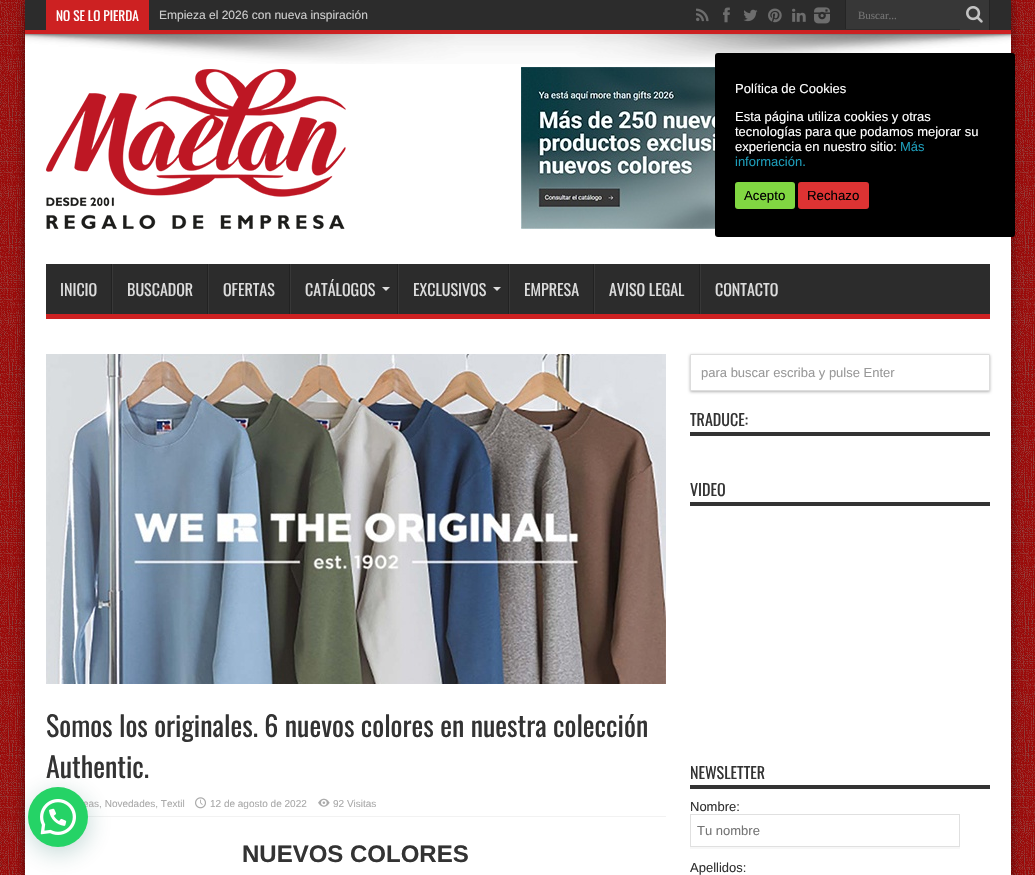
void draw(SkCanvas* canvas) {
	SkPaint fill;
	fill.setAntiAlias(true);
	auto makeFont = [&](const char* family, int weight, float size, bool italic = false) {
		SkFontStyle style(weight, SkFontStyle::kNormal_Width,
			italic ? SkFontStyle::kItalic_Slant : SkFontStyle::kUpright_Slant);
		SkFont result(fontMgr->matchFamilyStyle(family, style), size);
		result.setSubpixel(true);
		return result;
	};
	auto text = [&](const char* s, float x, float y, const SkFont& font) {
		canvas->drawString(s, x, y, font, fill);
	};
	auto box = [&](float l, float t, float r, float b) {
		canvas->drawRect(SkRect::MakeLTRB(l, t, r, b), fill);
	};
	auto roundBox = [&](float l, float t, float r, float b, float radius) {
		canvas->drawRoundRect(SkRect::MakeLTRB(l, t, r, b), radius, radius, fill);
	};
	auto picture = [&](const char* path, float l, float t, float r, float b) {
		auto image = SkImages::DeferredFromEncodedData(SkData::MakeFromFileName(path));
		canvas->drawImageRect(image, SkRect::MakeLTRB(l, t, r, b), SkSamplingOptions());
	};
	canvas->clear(0xFF980101);
	picture("image0.png", 0, 0, 1035, 875);
	fill.setColor(0x80000000);
	fill.setMaskFilter(SkMaskFilter::MakeBlur(kNormal_SkBlurStyle, 5));
	canvas->drawRect(SkRect::MakeLTRB(25, 0, 1011, 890), fill);
	fill.setMaskFilter(nullptr);
	fill.setColor(0xFFFFFFFF);
	box(25, 34, 1011, 875);
	fill.setColor(0xFF2C2C2C);
	box(25, 0, 1011, 30);
	fill.setColor(0xFFCD2122);
	box(25, 30, 1011, 34);
	box(46, 0, 149, 30);
	picture("image1.png", 696, 8, 709, 22);
	picture("image2.png", 723, 7, 730, 23);
	picture("image3.png", 743, 9, 758, 22);
	picture("image4.png", 768, 8, 782, 23);
	picture("image5.png", 792, 8, 806, 22);
	picture("image6.png", 814, 7, 830, 24);
	fill.setColor(0xFF373737);
	box(846, 0, 960, 29);
	fill.setColor(0xFF252525);
	box(845, 0, 846, 29);
	fill.setColor(0xFF373737);
	box(960, 0, 989, 30);
	fill.setColor(0xFF252525);
	box(989, 0, 990, 30);
	picture("image7.png", 966, 6, 983, 23);
	picture("image8.png", 25, 34, 1011, 64);
	picture("image9.png", 46, 69, 346, 229);
	picture("image10.png", 521, 67, 715, 229);
	fill.setColor(0xFF2C2C2C);
	box(46, 264, 990, 314);
	fill.setColor(0xFFCD2122);
	box(46, 314, 990, 319);
	fill.setColor(0xFF222222);
	box(111, 264, 112, 314);
	fill.setColor(0xFF383838);
	box(112, 264, 113, 314);
	fill.setColor(0xFF222222);
	box(207, 264, 208, 314);
	fill.setColor(0xFF383838);
	box(208, 264, 209, 314);
	fill.setColor(0xFF222222);
	box(289, 264, 290, 314);
	fill.setColor(0xFF383838);
	box(290, 264, 291, 314);
	fill.setColor(0xFFDDDDDD);
	canvas->drawPath(SkPathBuilder().moveTo(382, 287).lineTo(390, 287).lineTo(386, 291).close().detach(), fill);
	fill.setColor(0xFF222222);
	box(397, 264, 398, 314);
	fill.setColor(0xFF383838);
	box(398, 264, 399, 314);
	fill.setColor(0xFFDDDDDD);
	canvas->drawPath(SkPathBuilder().moveTo(493, 287).lineTo(501, 287).lineTo(497, 291).close().detach(), fill);
	fill.setColor(0xFF222222);
	box(508, 264, 509, 314);
	fill.setColor(0xFF383838);
	box(509, 264, 510, 314);
	fill.setColor(0xFF222222);
	box(593, 264, 594, 314);
	fill.setColor(0xFF383838);
	box(594, 264, 595, 314);
	fill.setColor(0xFF222222);
	box(699, 264, 700, 314);
	fill.setColor(0xFF383838);
	box(700, 264, 701, 314);
	picture("image11.png", 46, 354, 666, 684);
	fill.setColor(0xFFF2F2F2);
	box(87, 816, 666, 817);
	picture("image12.png", 195, 797, 206, 809);
	picture("image13.png", 318, 798, 330, 807);
	fill.setColor(0xFFB5B5B5);
	fill.setMaskFilter(SkMaskFilter::MakeBlur(kNormal_SkBlurStyle, 1.5f));
	canvas->drawRoundRect(SkRect::MakeLTRB(690, 355, 990, 392), 1, 1, fill);
	fill.setMaskFilter(nullptr);
	fill.setColor(0xFFFFFFFF);
	canvas->drawRoundRect(SkRect::MakeLTRB(690.5f, 354.5f, 989.5f, 390.5f), 0.5f, 0.5f, fill);
	fill.setStyle(SkPaint::kStroke_Style);
	fill.setStrokeWidth(1);
	fill.setColor(0xFFDDDDDD);
	canvas->drawRoundRect(SkRect::MakeLTRB(690.5f, 354.5f, 989.5f, 390.5f), 0.5f, 0.5f, fill);
	fill.setStyle(SkPaint::kFill_Style);
	fill.setColor(0xFF333333);
	box(690, 432, 990, 436);
	box(690, 502, 990, 506);
	box(690, 785, 990, 789);
	fill.setColor(0xFFF7F7F7);
	box(690, 847, 960, 849);
	fill.setStyle(SkPaint::kStroke_Style);
	fill.setColor(0xFFE0E0E0);
	canvas->drawRect(SkRect::MakeLTRB(690.5f, 814.5f, 959.5f, 846.5f), fill);
	fill.setStyle(SkPaint::kFill_Style);
	fill.setColor(0xFF000000);
	roundBox(715, 53, 1015, 237, 3);
	fill.setColor(0xFF81D742);
	roundBox(735, 182, 795, 209, 3);
	fill.setColor(0xFFDD3333);
	roundBox(798, 182, 869, 209, 3);
	fill.setColor(0x3D075E54);
	fill.setMaskFilter(SkMaskFilter::MakeBlur(kNormal_SkBlurStyle, 12));
	canvas->drawRoundRect(SkRect::MakeLTRB(29, 793, 89, 853), 30, 30, fill);
	fill.setMaskFilter(nullptr);
	auto font1 = makeFont("Oswald", 400, 13.25f);
	fill.setColor(0xFFFFFFFF);
	text("NO SE LO PIERDA", 56, 21, font1);
	auto font2 = makeFont("Liberation Sans", 400, 12);
	fill.setColor(0xFFCCCCCC);
	text("Empieza el 2026 con nueva inspiración", 159, 19, font2);
	auto font3 = makeFont("Liberation Serif", 400, 11);
	fill.setColor(0xFF757575);
	text("Buscar...", 858, 19, font3);
	auto font4 = makeFont("Oswald", 400, 16);
	fill.setColor(0xFFDDDDDD);
	text("INICIO", 60, 296, font4);
	text("BUSCADOR", 127, 296, font4);
	text("OFERTAS", 223, 296, font4);
	text("CATÁLOGOS", 305, 296, font4);
	text("EXCLUSIVOS", 413, 296, font4);
	text("EMPRESA", 524, 296, font4);
	text("AVISO LEGAL", 609, 296, font4);
	text("CONTACTO", 715, 296, font4);
	auto font5 = makeFont("Oswald", 400, 28);
	fill.setColor(0xFF333333);
	text("Somos los originales. 6 nuevos colores en nuestra colección", 46, 737, font5);
	text("Authentic.", 46, 778, font5);
	auto font6 = makeFont("Liberation Sans", 400, 10);
	fill.setColor(0xFFAAAAAA);
	text("eas, Novedades, Textil", 83, 807, font6);
	text("12 de agosto de 2022", 210, 807, font6);
	text("92 Visitas", 333, 807, font6);
	auto font7 = makeFont("Liberation Sans", 700, 24);
	fill.setColor(0xFF333333);
	text("NUEVOS COLORES", 242, 862, font7);
	auto font8 = makeFont("Liberation Sans", 400, 13);
	fill.setColor(0xFF999999);
	text("para buscar escriba y pulse Enter", 701, 377, font8);
	fill.setColor(0xFF333333);
	text("TRADUCE:", 690, 426, font4);
	text("VIDEO", 690, 496, font4);
	text("NEWSLETTER", 690, 779, font4);
	text("Nombre:", 690, 811, font8);
	fill.setColor(0xFF757575);
	text("Tu nombre", 697, 835, font8);
	fill.setColor(0xFF333333);
	text("Apellidos:", 690, 872, font8);
	fill.setColor(0xFFFFFFFF);
	text("Política de Cookies", 735, 93, font8);
	text("Esta página utiliza cookies y otras", 735, 121, font8);
	text("tecnologías para que podamos mejorar su", 735, 136, font8);
	text("experiencia en nuestro sitio:", 735, 151, font8);
	fill.setColor(0xFF1D9BB7);
	text("Más", 900, 151, font8);
	text("información.", 735, 166, font8);
	auto font9 = makeFont("Liberation Sans", 400, 13.25f);
	fill.setColor(0xFF000000);
	text("Acepto", 744, 200, font9);
	text("Rechazo", 807, 200, font9);
	fill.setColor(0xFF25D366);
	canvas->drawCircle(58, 817, 30, fill);
	picture("image14.png", 40, 799, 76, 835);
}
